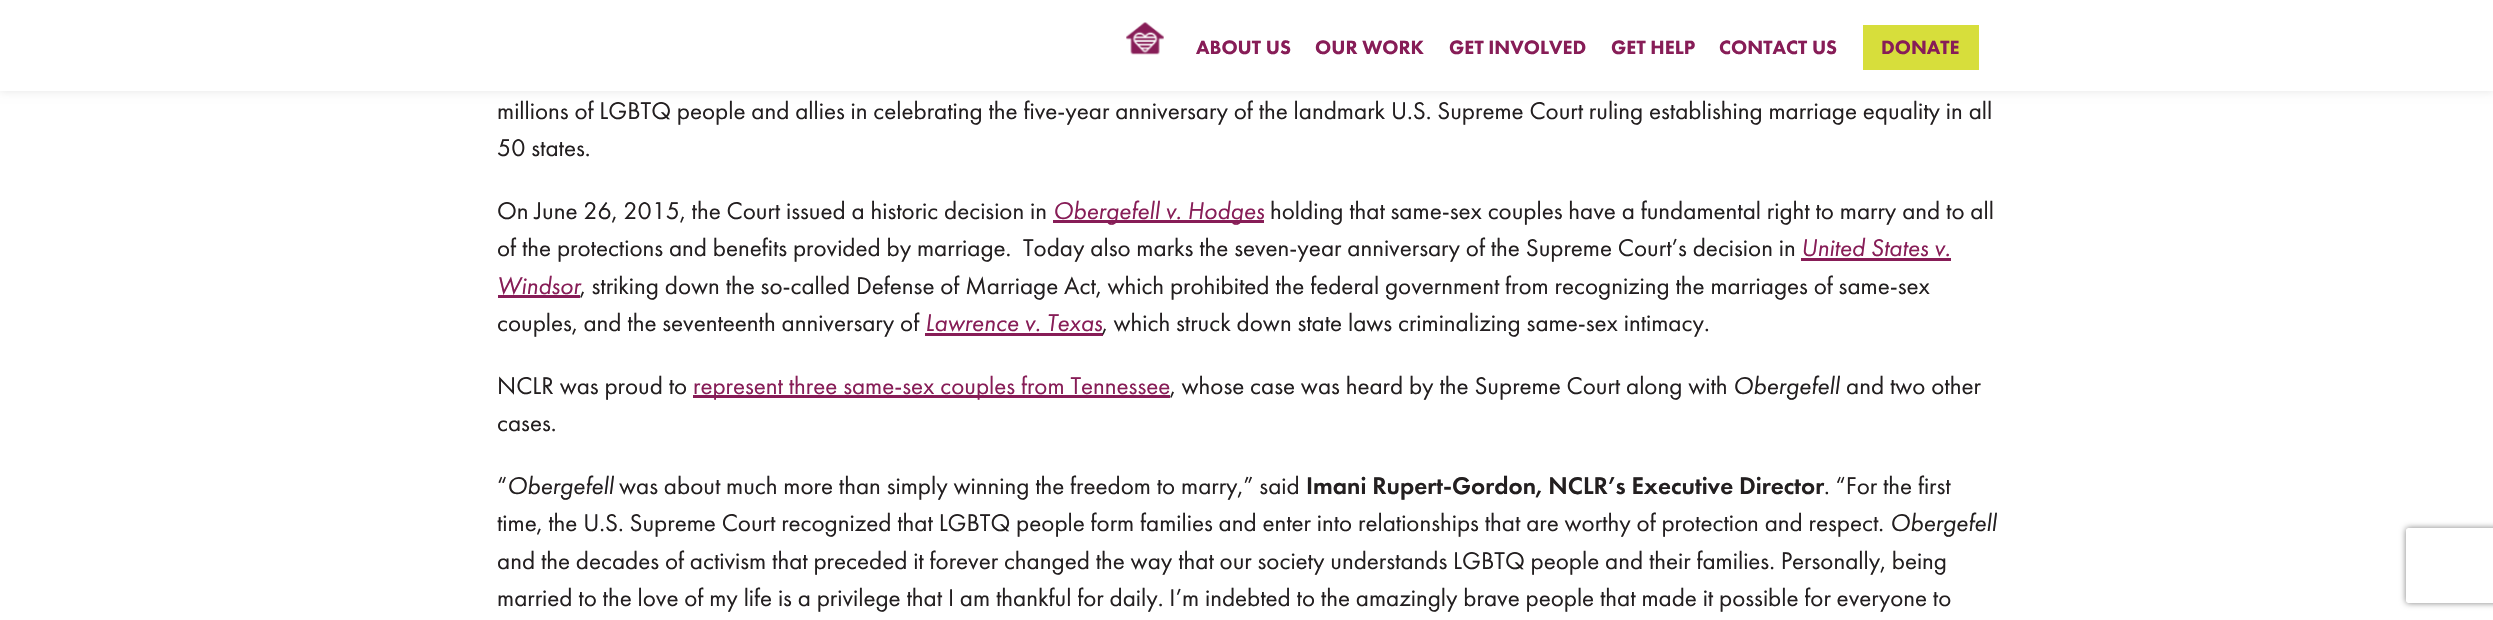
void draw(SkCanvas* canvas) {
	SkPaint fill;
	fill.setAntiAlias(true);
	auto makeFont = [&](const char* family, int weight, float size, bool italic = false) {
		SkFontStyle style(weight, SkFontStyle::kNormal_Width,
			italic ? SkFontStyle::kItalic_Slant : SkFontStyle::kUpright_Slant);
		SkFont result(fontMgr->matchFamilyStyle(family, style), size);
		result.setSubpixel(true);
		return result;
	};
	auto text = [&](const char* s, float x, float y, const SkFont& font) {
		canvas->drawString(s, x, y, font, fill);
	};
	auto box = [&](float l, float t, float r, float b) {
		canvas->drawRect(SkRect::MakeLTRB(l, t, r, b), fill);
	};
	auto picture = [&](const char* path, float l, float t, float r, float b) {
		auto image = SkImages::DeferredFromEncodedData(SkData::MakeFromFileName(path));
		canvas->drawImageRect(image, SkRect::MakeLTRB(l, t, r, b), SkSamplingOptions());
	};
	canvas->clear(0xFFFFFFFF);
	fill.setColor(0x1A000000);
	fill.setMaskFilter(SkMaskFilter::MakeBlur(kNormal_SkBlurStyle, 4.5f));
	canvas->drawRect(SkRect::MakeLTRB(0, 0, 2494, 91), fill);
	fill.setMaskFilter(nullptr);
	fill.setColor(0xFFFFFFFF);
	box(0, 0, 2493, 91);
	picture("image0.png", 1126, 22, 1164, 55);
	fill.setColor(0xFFD7DE3B);
	box(1863, 25, 1979, 70);
	fill.setColor(0xFF871D57);
	box(1053, 220, 1264, 223);
	box(1801, 258, 1951, 261);
	box(498, 295, 580, 298);
	box(925, 333, 1103, 336);
	box(693, 395, 1170, 398);
	canvas->save();
	canvas->clipPath(SkPathBuilder(SkPathFillType::kEvenOdd).moveTo(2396, 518).lineTo(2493, 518).lineTo(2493, 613).lineTo(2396, 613).close().moveTo(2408.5f, 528).lineTo(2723.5f, 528).cubicTo(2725, 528, 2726, 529, 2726, 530.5f).lineTo(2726, 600.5f).cubicTo(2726, 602, 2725, 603, 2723.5f, 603).lineTo(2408.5f, 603).cubicTo(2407, 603, 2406, 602, 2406, 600.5f).lineTo(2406, 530.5f).cubicTo(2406, 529, 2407, 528, 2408.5f, 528).close().detach(), true);
	fill.setColor(0xFF808080);
	fill.setMaskFilter(SkMaskFilter::MakeBlur(kNormal_SkBlurStyle, 3));
	canvas->drawRoundRect(SkRect::MakeLTRB(2406, 528, 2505, 603), 2.5f, 2.5f, fill);
	fill.setMaskFilter(nullptr);
	canvas->restore();
	auto font1 = makeFont("Futura PT", 900, 20);
	fill.setColor(0xFF871D57);
	text("ABOUT US", 1196, 54, font1);
	text("OUR WORK", 1315, 54, font1);
	text("GET INVOLVED", 1449, 54, font1);
	text("GET HELP", 1611, 54, font1);
	text("CONTACT US", 1719, 54, font1);
	text("DONATE", 1881, 54, font1);
	auto font2 = makeFont("Futura PT", 400, 25);
	fill.setColor(0xFF231F20);
	text("millions of LGBTQ people and allies in celebrating the five-year anniversary of the landmark U.S. Supreme Court ruling establishing marriage equality in all", 497, 119, font2);
	text("50 states.", 497, 156, font2);
	text("On June 26, 2015, the Court issued a historic decision in", 497, 219, font2);
	auto font3 = makeFont("Futura PT", 400, 25, true);
	fill.setColor(0xFF871D57);
	text("Obergefell v. Hodges", 1053, 219, font3);
	fill.setColor(0xFF231F20);
	text("holding that same-sex couples have a fundamental right to marry and to all", 1270, 219, font2);
	text("of the protections and benefits provided by marriage.  Today also marks the seven-year anniversary of the Supreme Court’s decision in", 497, 256, font2);
	fill.setColor(0xFF871D57);
	text("United States v.", 1801, 256, font3);
	text("Windsor", 497, 294, font3);
	fill.setColor(0xFF231F20);
	text(", striking down the so-called Defense of Marriage Act, which prohibited the federal government from recognizing the marriages of same-sex", 580, 294, font2);
	text("couples, and the seventeenth anniversary of", 497, 331, font2);
	fill.setColor(0xFF871D57);
	text("Lawrence v. Texas", 925, 331, font3);
	fill.setColor(0xFF231F20);
	text(", which struck down state laws criminalizing same-sex intimacy.", 1102, 331, font2);
	text("NCLR was proud to", 497, 394, font2);
	fill.setColor(0xFF871D57);
	text("represent three same-sex couples from Tennessee", 693, 394, font2);
	fill.setColor(0xFF231F20);
	text(", whose case was heard by the Supreme Court along with", 1170, 394, font2);
	text("Obergefell", 1733, 394, font3);
	text("and two other", 1846, 394, font2);
	text("cases.", 497, 431, font2);
	text("“", 497, 494, font2);
	text("Obergefell", 507, 494, font3);
	text("was about much more than simply winning the freedom to marry,” said", 619, 494, font2);
	auto font4 = makeFont("Futura PT", 500, 25);
	text("Imani Rupert-Gordon, NCLR’s Executive Director", 1306, 494, font4);
	text(". “For the first", 1824, 494, font2);
	text("time, the U.S. Supreme Court recognized that LGBTQ people form families and enter into relationships that are worthy of protection and respect.", 497, 531, font2);
	text("Obergefell", 1890, 531, font3);
	text("and the decades of activism that preceded it forever changed the way that our society understands LGBTQ people and their families. Personally, being", 497, 569, font2);
	text("married to the love of my life is a privilege that I am thankful for daily. I’m indebted to the amazingly brave people that made it possible for everyone to", 497, 606, font2);
}
